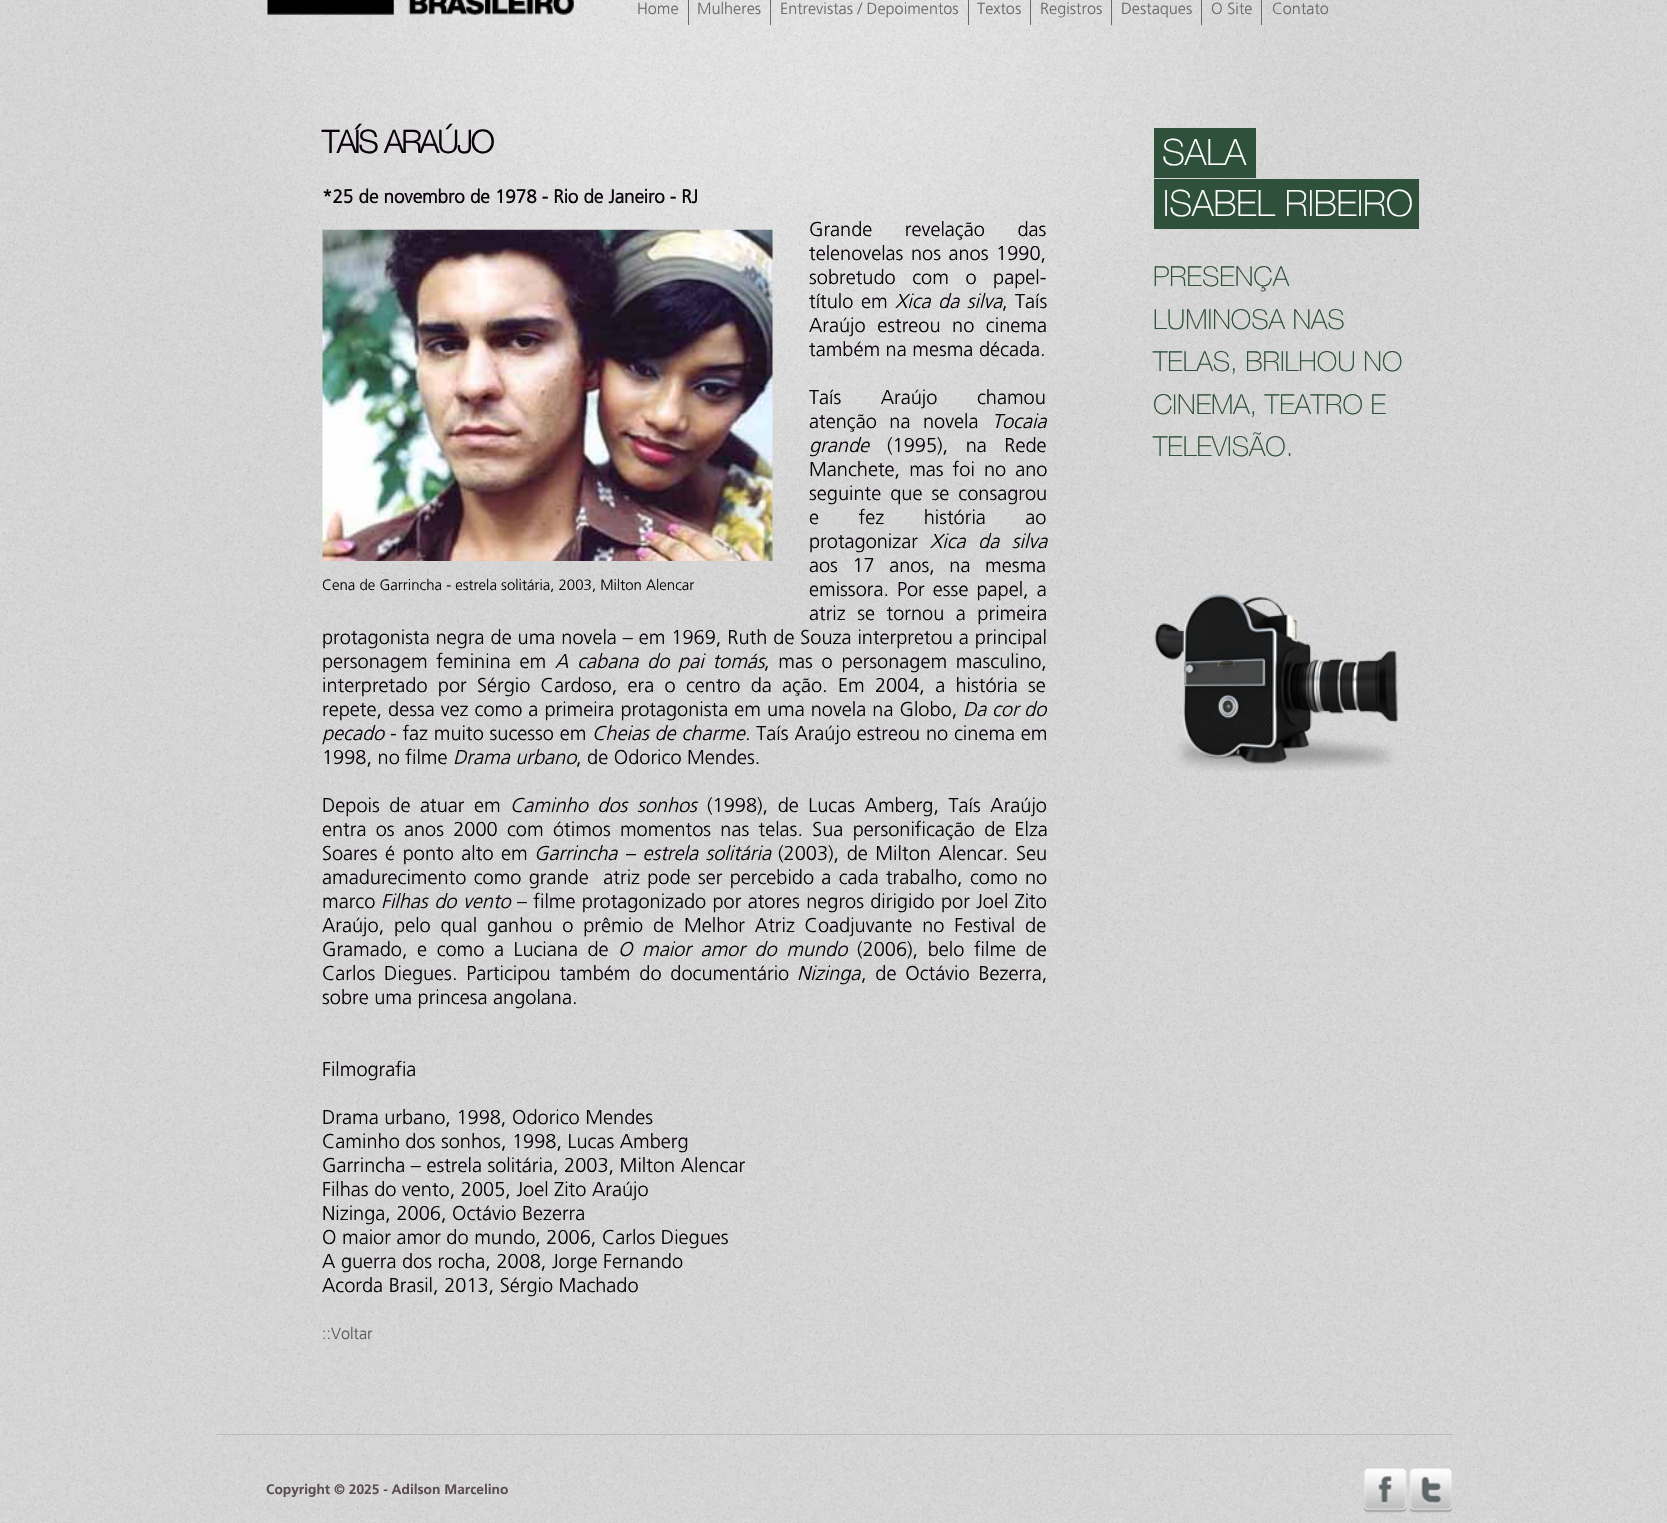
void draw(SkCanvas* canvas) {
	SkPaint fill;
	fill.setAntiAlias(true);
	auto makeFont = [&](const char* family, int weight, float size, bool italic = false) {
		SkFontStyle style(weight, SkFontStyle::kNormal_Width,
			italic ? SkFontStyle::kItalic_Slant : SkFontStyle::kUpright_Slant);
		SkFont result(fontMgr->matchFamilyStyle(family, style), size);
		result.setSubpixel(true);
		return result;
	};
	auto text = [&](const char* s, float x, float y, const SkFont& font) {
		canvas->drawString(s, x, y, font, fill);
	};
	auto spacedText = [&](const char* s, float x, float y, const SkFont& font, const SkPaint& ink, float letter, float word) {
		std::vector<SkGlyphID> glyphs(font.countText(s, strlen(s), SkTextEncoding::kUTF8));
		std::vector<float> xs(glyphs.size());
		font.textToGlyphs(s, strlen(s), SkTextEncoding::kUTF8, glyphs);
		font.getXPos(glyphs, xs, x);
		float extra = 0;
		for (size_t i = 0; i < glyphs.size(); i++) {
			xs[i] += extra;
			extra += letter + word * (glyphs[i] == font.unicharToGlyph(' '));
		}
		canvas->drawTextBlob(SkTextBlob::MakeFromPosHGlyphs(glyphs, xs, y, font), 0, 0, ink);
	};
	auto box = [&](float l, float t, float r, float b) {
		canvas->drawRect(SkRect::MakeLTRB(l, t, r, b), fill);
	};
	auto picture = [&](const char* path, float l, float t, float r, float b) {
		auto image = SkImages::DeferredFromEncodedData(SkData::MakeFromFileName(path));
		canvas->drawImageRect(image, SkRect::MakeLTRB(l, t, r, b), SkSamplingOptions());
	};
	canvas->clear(0xFFCBCBCB);
	picture("image0.png", 0, 0, 1667, 1523);
	picture("image1.png", 267, 0, 574, 15);
	fill.setColor(0xFF696A6D);
	box(688, 0, 689, 25);
	box(770, 0, 771, 25);
	box(968, 0, 969, 25);
	box(1030, 0, 1031, 25);
	box(1111, 0, 1112, 25);
	box(1201, 0, 1202, 25);
	box(1261, 0, 1262, 25);
	picture("image2.png", 322, 229, 773, 561);
	picture("image3.png", 1154, 593, 1398, 771);
	fill.setColor(0xFF2F503A);
	box(1154, 128, 1256, 178);
	box(1154, 179, 1419, 229);
	fill.setColor(0xFFBBBBBB);
	box(216, 1434, 1453, 1435);
	picture("image4.png", 1363, 1467, 1453, 1513);
	auto font1 = makeFont("Frutiger", 300, 16.25f);
	fill.setColor(0xFF696A6D);
	text("Home", 637, 14, font1);
	text("Mulheres", 697, 14, font1);
	text("Entrevistas / Depoimentos", 780, 14, font1);
	text("Textos", 977, 14, font1);
	text("Registros", 1040, 14, font1);
	text("Destaques", 1121, 14, font1);
	text("O Site", 1211, 14, font1);
	text("Contato", 1272, 14, font1);
	auto font2 = makeFont("Helvetica Neue", 700, 31.25f);
	fill.setColor(0xFF0A030B);
	spacedText("TAÍS ARAÚJO", 322, 153, font2, fill, -1.25f, 0);
	auto font3 = makeFont("Frutiger", 700, 18.75f);
	text("*25 de novembro de 1978 - Rio de Janeiro - RJ", 322, 203, font3);
	auto font4 = makeFont("Frutiger", 300, 20);
	spacedText("Grande revelação das", 809, 236, font4, fill, 0, 27);
	spacedText("telenovelas nos anos 1990,", 809, 260, font4, fill, 0, 2);
	spacedText("sobretudo com o papel-", 809, 284, font4, fill, 0, 11);
	spacedText("título em", 809, 308, font4, fill, 0, 2);
	auto font5 = makeFont("Frutiger", 300, 20, true);
	spacedText("Xica da silva", 895, 308, font5, fill, 0, 2);
	spacedText(", Taís", 1002, 308, font4, fill, 0, 2);
	spacedText("Araújo estreou no cinema", 809, 332, font4, fill, 0, 6);
	text("também na mesma década.", 809, 356, font4);
	spacedText("Taís Araújo chamou", 809, 404, font4, fill, 0, 34);
	spacedText("atenção na novela", 809, 428, font4, fill, 0, 7);
	text("Tocaia", 992, 428, font5);
	text("grande", 809, 452, font5);
	spacedText("(1995), na Rede", 887, 452, font4, fill, 0, 12);
	spacedText("Manchete, mas foi no ano", 809, 476, font4, fill, 0, 3.5f);
	spacedText("seguinte que se consagrou", 809, 500, font4, fill, 0, 3.5f);
	spacedText("e fez história ao", 809, 524, font4, fill, 0, 34);
	text("protagonizar", 809, 548, font4);
	spacedText("Xica da silva", 930, 548, font5, fill, 0, 7);
	spacedText("aos 17 anos, na mesma", 809, 572, font4, fill, 0, 9);
	spacedText("emissora. Por esse papel, a", 809, 596, font4, fill, 0, 2.5f);
	spacedText("atriz se tornou a primeira", 809, 620, font4, fill, 0, 6);
	spacedText("protagonista negra de uma novela – em 1969, Ruth de Souza interpretou a principal", 322, 644, font4, fill, 0, 0.4f);
	spacedText("personagem feminina em", 322, 668, font4, fill, 0, 3.25f);
	spacedText("A cabana do pai tomás", 555, 668, font5, fill, 0, 3.25f);
	spacedText(", mas o personagem masculino,", 764, 668, font4, fill, 0, 3.25f);
	spacedText("interpretado por Sérgio Cardoso, era o centro da ação. Em 2004, a história se", 322, 692, font4, fill, 0, 4.75f);
	spacedText("repete, dessa vez como a primeira protagonista em uma novela na Globo,", 322, 716, font4, fill, 0, 0.5f);
	text("Da cor do", 963, 716, font5);
	text("pecado", 322, 740, font5);
	spacedText("- faz muito sucesso em", 390, 740, font4, fill, 0, 0.25f);
	spacedText("Cheias de charme", 592, 740, font5, fill, 0, 0.25f);
	spacedText(". Taís Araújo estreou no cinema em", 745, 740, font4, fill, 0, 0.25f);
	text("1998, no filme", 322, 764, font4);
	text("Drama urbano", 453, 764, font5);
	text(", de Odorico Mendes.", 576, 764, font4);
	auto font6 = makeFont("Frutiger", 300, 15);
	text("Cena de Garrincha - estrela solitária, 2003, Milton Alencar", 322, 590, font6);
	spacedText("Depois de atuar em", 322, 812, font4, fill, 0, 4);
	spacedText("Caminho dos sonhos", 510, 812, font5, fill, 0, 4);
	spacedText("(1998), de Lucas Amberg, Taís Araújo", 707, 812, font4, fill, 0, 4);
	spacedText("entra os anos 2000 com ótimos momentos nas telas. Sua personificação de Elza", 322, 836, font4, fill, 0, 3.75f);
	spacedText("Soares é ponto alto em", 322, 860, font4, fill, 0, 2);
	spacedText("Garrincha – estrela solitária", 534, 860, font5, fill, 0, 2);
	spacedText("(2003), de Milton Alencar. Seu", 778, 860, font4, fill, 0, 2);
	spacedText("amadurecimento como grande  atriz pode ser percebido a cada trabalho, como no", 322, 884, font4, fill, 0, 1.75f);
	text("marco", 322, 908, font4);
	spacedText("Filhas do vento", 381, 908, font5, fill, 0, 1);
	spacedText("– filme protagonizado por atores negros dirigido por Joel Zito", 517, 908, font4, fill, 0, 0.75f);
	spacedText("Araújo, pelo qual ganhou o prêmio de Melhor Atriz Coadjuvante no Festival de", 322, 932, font4, fill, 0, 4.25f);
	spacedText("Gramado, e como a Luciana de", 322, 956, font4, fill, 0, 4);
	spacedText("O maior amor do mundo", 618, 956, font5, fill, 0, 4);
	spacedText("(2006), belo filme de", 857, 956, font4, fill, 0, 4);
	spacedText("Carlos Diegues. Participou também do documentário", 322, 980, font4, fill, 0, 3.25f);
	text("Nizinga", 797, 980, font5);
	spacedText(", de Octávio Bezerra,", 861, 980, font4, fill, 0, 3.25f);
	text("sobre uma princesa angolana.", 322, 1004, font4);
	text("Filmografia", 322, 1076, font4);
	text("Drama urbano, 1998, Odorico Mendes", 322, 1124, font4);
	text("Caminho dos sonhos, 1998, Lucas Amberg", 322, 1148, font4);
	text("Garrincha – estrela solitária, 2003, Milton Alencar", 322, 1172, font4);
	text("Filhas do vento, 2005, Joel Zito Araújo", 322, 1196, font4);
	text("Nizinga, 2006, Octávio Bezerra", 322, 1220, font4);
	text("O maior amor do mundo, 2006, Carlos Diegues", 322, 1244, font4);
	text("A guerra dos rocha, 2008, Jorge Fernando", 322, 1268, font4);
	text("Acorda Brasil, 2013, Sérgio Machado", 322, 1292, font4);
	fill.setColor(0xFF58595B);
	text("::Voltar", 322, 1339, font1);
	auto font7 = makeFont("Helvetica Neue", 100, 36.25f);
	fill.setColor(0xFFFFFFFF);
	text("SALA", 1162, 165, font7);
	text("ISABEL RIBEIRO", 1163, 216, font7);
	auto font8 = makeFont("Helvetica Neue", 100, 27.5f);
	fill.setColor(0xFF2F503A);
	text("PRESENÇA", 1153, 286, font8);
	text("LUMINOSA NAS", 1153, 329, font8);
	text("TELAS, BRILHOU NO", 1153, 371, font8);
	text("CINEMA, TEATRO E", 1153, 414, font8);
	text("TELEVISÃO.", 1153, 456, font8);
	auto font9 = makeFont("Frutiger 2", 700, 13.75f);
	fill.setColor(0xFF5B4D54);
	text("Copyright © 2025 - Adilson Marcelino", 266, 1494, font9);
}
